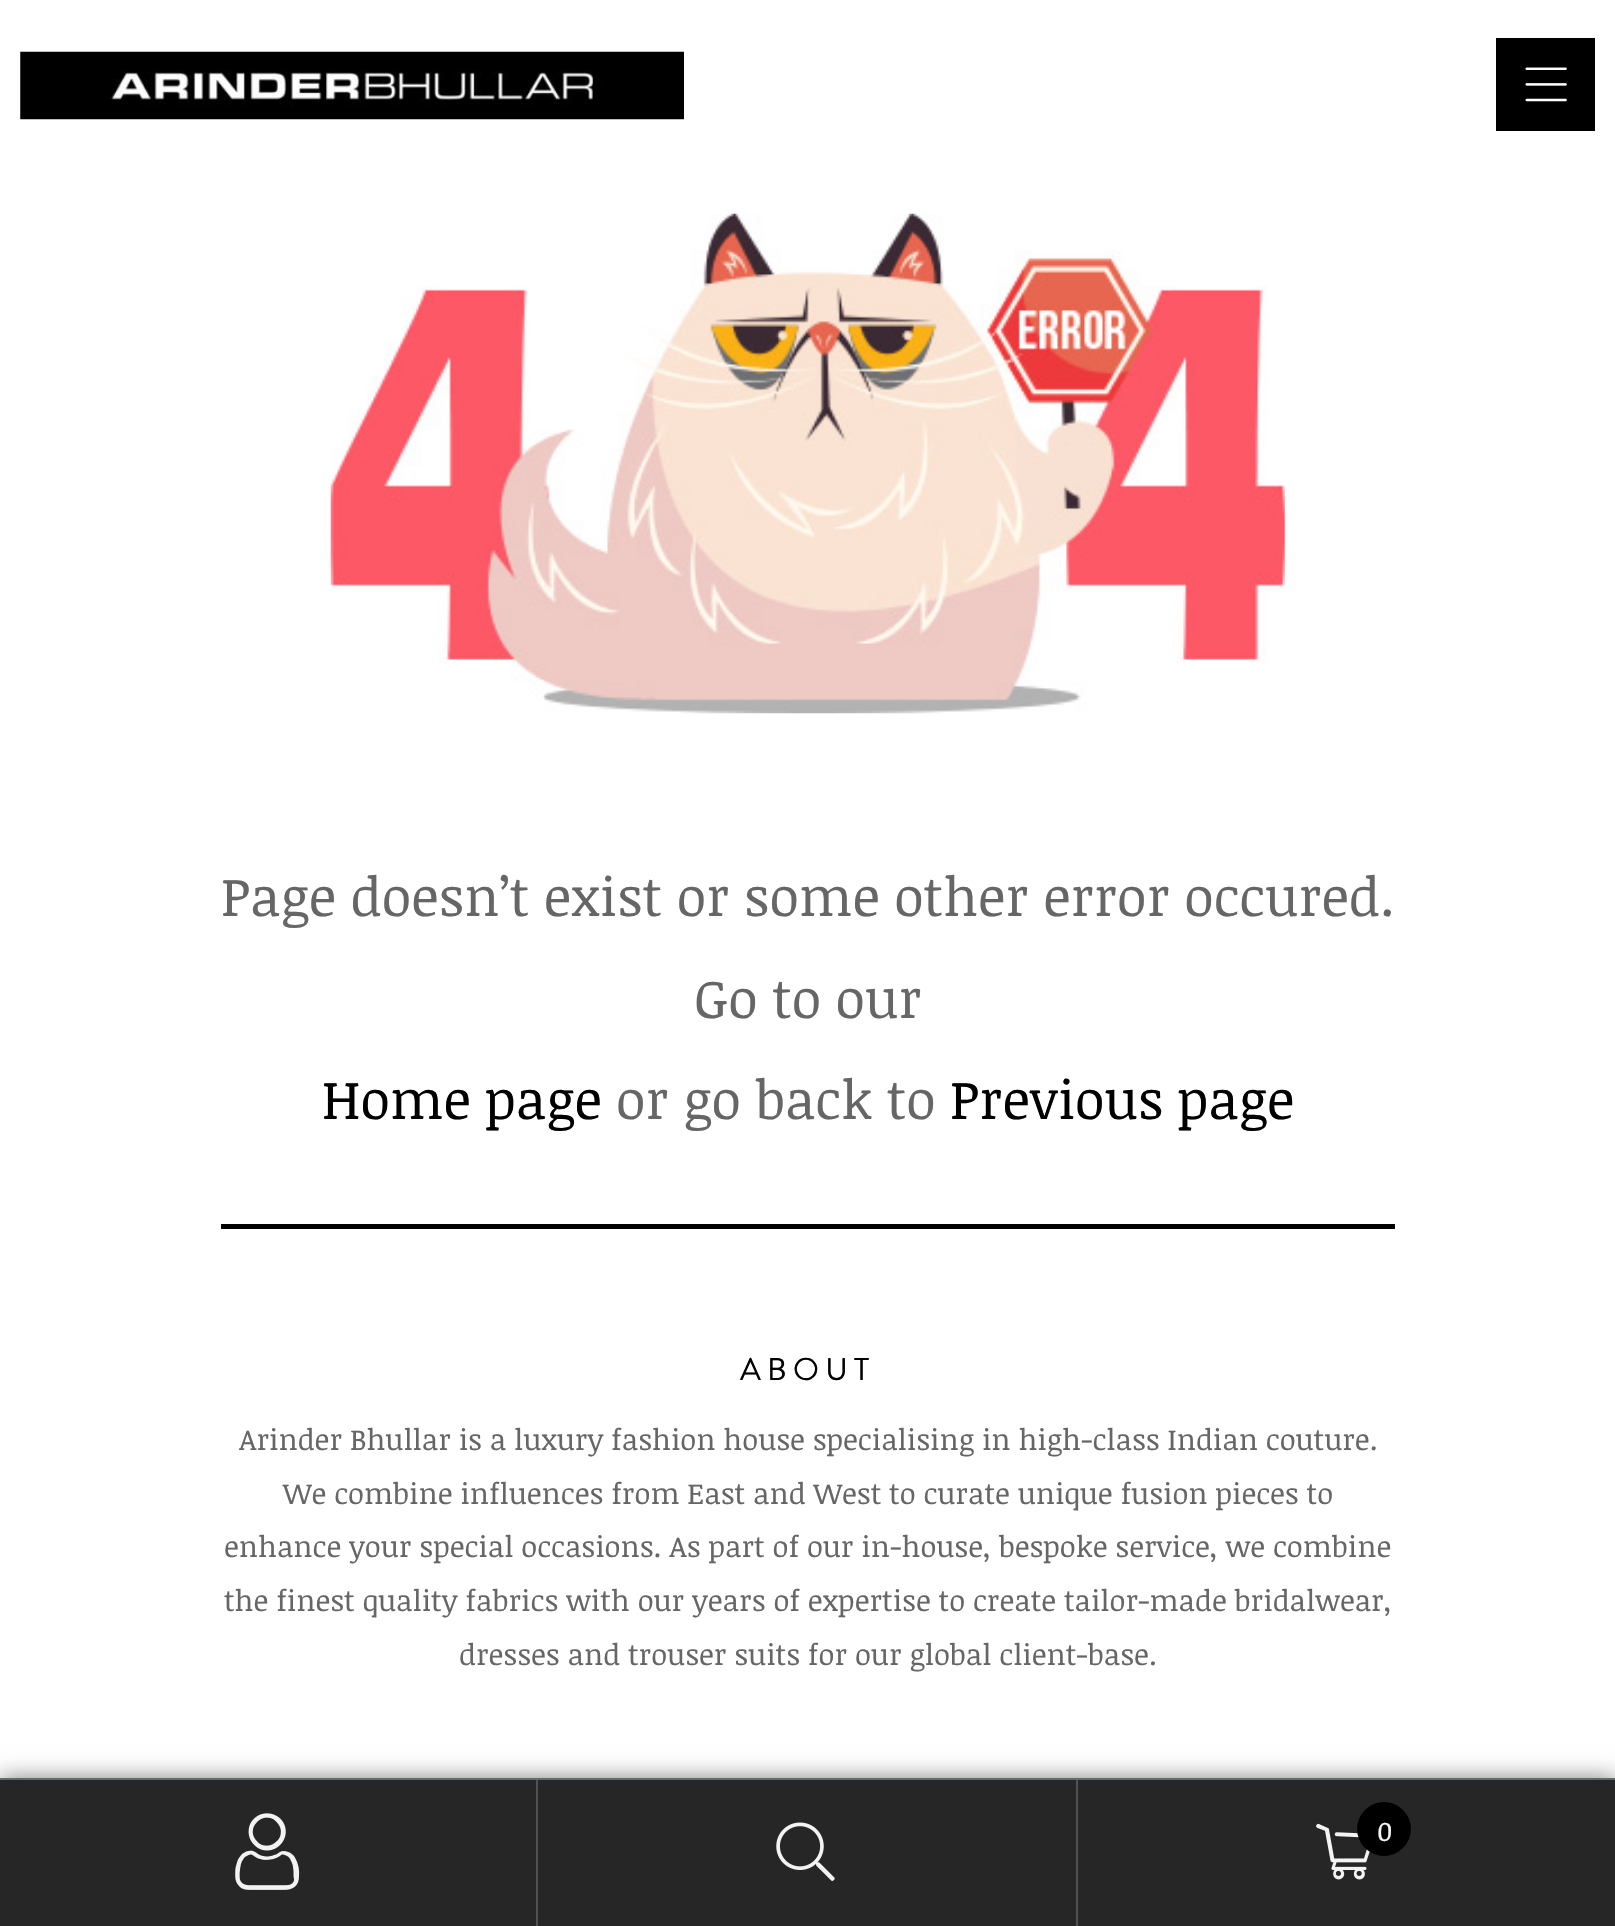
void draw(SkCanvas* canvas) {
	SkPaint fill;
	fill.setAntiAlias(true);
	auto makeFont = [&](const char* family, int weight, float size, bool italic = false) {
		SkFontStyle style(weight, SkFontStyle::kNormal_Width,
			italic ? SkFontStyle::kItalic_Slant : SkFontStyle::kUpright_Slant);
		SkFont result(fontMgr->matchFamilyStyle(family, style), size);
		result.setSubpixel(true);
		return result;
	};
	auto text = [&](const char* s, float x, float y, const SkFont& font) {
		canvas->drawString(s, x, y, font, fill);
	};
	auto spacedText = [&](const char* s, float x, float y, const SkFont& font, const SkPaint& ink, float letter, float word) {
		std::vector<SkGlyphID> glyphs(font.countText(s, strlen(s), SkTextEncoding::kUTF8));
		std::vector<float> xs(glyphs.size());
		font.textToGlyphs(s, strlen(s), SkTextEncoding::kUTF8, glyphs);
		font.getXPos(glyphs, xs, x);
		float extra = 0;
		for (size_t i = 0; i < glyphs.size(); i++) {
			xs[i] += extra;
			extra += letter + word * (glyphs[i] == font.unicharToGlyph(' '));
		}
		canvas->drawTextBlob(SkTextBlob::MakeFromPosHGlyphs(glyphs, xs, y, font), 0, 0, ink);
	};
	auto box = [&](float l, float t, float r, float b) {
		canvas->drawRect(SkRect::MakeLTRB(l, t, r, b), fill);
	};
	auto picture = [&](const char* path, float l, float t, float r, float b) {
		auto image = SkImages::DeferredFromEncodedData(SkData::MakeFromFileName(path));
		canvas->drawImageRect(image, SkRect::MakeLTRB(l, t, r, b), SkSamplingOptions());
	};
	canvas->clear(0xFFFFFFFF);
	picture("image0.png", 20, 51, 684, 120);
	fill.setColor(0xFF000000);
	box(1496, 38, 1595, 131);
	picture("image1.png", 1525, 67, 1567, 102);
	picture("image2.png", 330, 213, 1285, 714);
	box(221, 1224, 1395, 1229);
	fill.setColor(0x80000000);
	fill.setMaskFilter(SkMaskFilter::MakeBlur(kNormal_SkBlurStyle, 11));
	canvas->drawRect(SkRect::MakeLTRB(0, 1778, 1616, 1926), fill);
	fill.setMaskFilter(nullptr);
	fill.setColor(0xFF65696D);
	box(0, 1778, 1615, 1780);
	fill.setColor(0xFF262626);
	box(0, 1780, 536, 1926);
	fill.setColor(0xFF515151);
	box(536, 1780, 538, 1926);
	picture("image3.png", 235, 1813, 300, 1890);
	fill.setColor(0xFF262626);
	box(538, 1780, 1076, 1926);
	fill.setColor(0xFF515151);
	box(1076, 1780, 1078, 1926);
	picture("image4.png", 776, 1822, 835, 1881);
	fill.setColor(0xFF262626);
	box(1078, 1780, 1615, 1926);
	picture("image5.png", 1316, 1823, 1370, 1880);
	fill.setColor(0xFF000000);
	canvas->drawCircle(1384, 1829, 27, fill);
	auto font1 = makeFont("Noticia Text", 400, 54);
	fill.setColor(0xFF666666);
	text("Page doesn’t exist or some other error occured.", 221, 916, font1);
	text("Go to our", 694, 1018, font1);
	fill.setColor(0xFF000000);
	text("Home page", 322, 1119, font1);
	fill.setColor(0xFF666666);
	text("or go back to", 616, 1119, font1);
	fill.setColor(0xFF000000);
	text("Previous page", 950, 1119, font1);
	auto font2 = makeFont("Brandon Grotesque", 400, 31.5f);
	spacedText("ABOUT", 740, 1380, font2, fill, 6.25f, 0);
	auto font3 = makeFont("Noticia Text", 400, 29.25f);
	fill.setColor(0xFF666666);
	text("Arinder Bhullar is a luxury fashion house specialising in high-class Indian couture.", 239, 1450, font3);
	text("We combine influences from East and West to curate unique fusion pieces to", 283, 1504, font3);
	text("enhance your special occasions. As part of our in-house, bespoke service, we combine", 224, 1557, font3);
	text("the finest quality fabrics with our years of expertise to create tailor-made bridalwear,", 224, 1611, font3);
	text("dresses and trouser suits for our global client-base.", 459, 1665, font3);
	auto font4 = makeFont("Noticia Text", 400, 27);
	fill.setColor(0xFFF3F3F3);
	text("0", 1377, 1841, font4);
}
